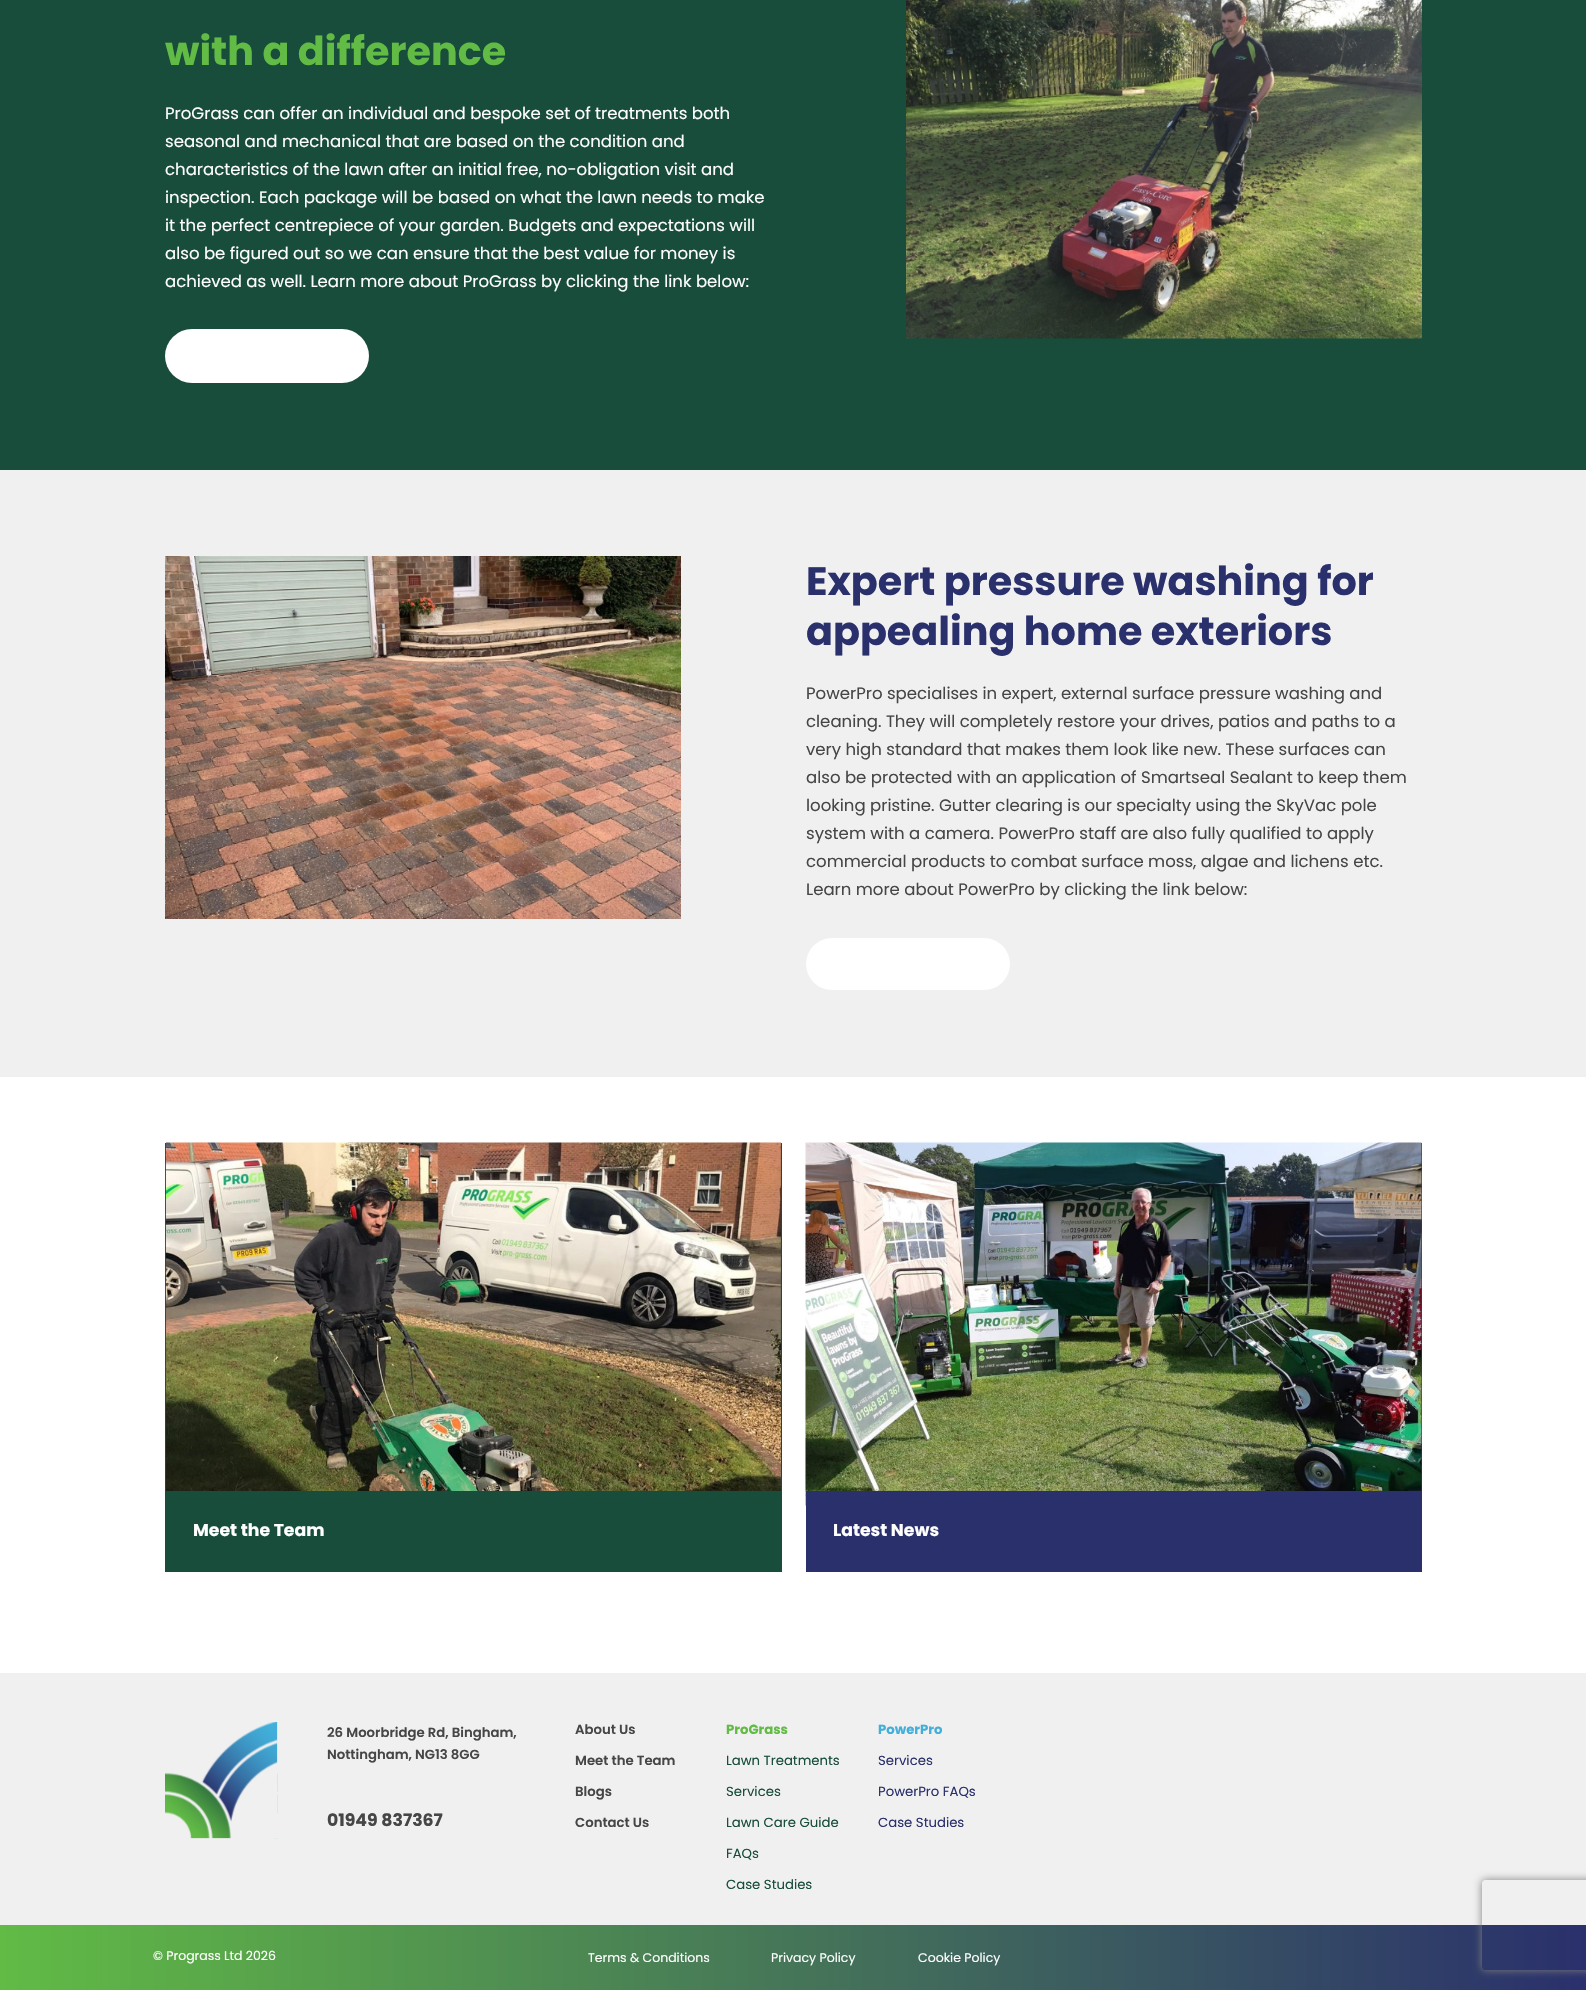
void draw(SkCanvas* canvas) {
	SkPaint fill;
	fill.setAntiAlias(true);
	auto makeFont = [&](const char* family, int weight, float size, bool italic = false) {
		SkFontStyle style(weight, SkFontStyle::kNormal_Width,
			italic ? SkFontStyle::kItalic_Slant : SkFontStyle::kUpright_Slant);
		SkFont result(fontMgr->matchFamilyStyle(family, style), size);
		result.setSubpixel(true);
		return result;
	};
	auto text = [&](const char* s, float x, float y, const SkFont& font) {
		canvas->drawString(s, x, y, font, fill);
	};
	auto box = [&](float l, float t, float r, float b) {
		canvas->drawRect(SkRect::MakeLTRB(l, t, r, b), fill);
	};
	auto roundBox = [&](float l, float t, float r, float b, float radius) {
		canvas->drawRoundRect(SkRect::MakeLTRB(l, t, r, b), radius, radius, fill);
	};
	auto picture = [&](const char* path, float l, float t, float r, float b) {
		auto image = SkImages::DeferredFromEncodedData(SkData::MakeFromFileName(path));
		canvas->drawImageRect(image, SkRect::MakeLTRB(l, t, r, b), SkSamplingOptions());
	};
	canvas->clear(0xFFFFFFFF);
	fill.setColor(0xFF184D3B);
	box(0, 0, 1586, 470);
	fill.setColor(0xFFFFFFFF);
	roundBox(165, 329, 369, 383, 27);
	picture("image0.png", 906, 0, 1422, 339);
	fill.setColor(0xFFF0F0F0);
	box(0, 470, 1586, 1077);
	picture("image1.png", 165, 556, 681, 919);
	fill.setColor(0xFFFFFFFF);
	roundBox(806, 938, 1010, 990, 26);
	fill.setColor(0xFF184D3B);
	box(165, 1143, 782, 1572);
	picture("image2.png", 165, 1142, 781, 1491);
	box(1421, 1143, 1422, 1491);
	picture("image3.png", 805, 1142, 1422, 1506);
	fill.setColor(0xFF2A306C);
	box(806, 1491, 1422, 1572);
	fill.setColor(0xFFF0F0F0);
	box(0, 1673, 1586, 1925);
	picture("image4.png", 165, 1722, 278, 1839);
	{
		const SkColor colors[] = {0xFF61BB45, 0xFF2A306C};
		const float stops[] = {0, 1};
		const SkPoint ends[] = {{0, 1958}, {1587, 1958}};
		fill.setShader(SkGradientShader::MakeLinear(ends, colors, stops, 2, SkTileMode::kClamp));
		fill.setAlpha(255);
	}
	box(0, 1925, 1586, 1990);
	canvas->save();
	canvas->clipPath(SkPathBuilder(SkPathFillType::kEvenOdd).moveTo(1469, 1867).lineTo(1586, 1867).lineTo(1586, 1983).lineTo(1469, 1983).close().moveTo(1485, 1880).lineTo(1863, 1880).cubicTo(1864.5f, 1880, 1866, 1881.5f, 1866, 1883).lineTo(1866, 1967).cubicTo(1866, 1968.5f, 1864.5f, 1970, 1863, 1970).lineTo(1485, 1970).cubicTo(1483.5f, 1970, 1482, 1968.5f, 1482, 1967).lineTo(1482, 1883).cubicTo(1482, 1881.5f, 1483.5f, 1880, 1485, 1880).close().detach(), true);
	fill.setShader(nullptr);
	fill.setColor(0xFF808080);
	fill.setMaskFilter(SkMaskFilter::MakeBlur(kNormal_SkBlurStyle, 4));
	canvas->drawRoundRect(SkRect::MakeLTRB(1482, 1880, 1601, 1970), 3, 3, fill);
	fill.setMaskFilter(nullptr);
	canvas->restore();
	auto font1 = makeFont("Poppins", 700, 39.7f);
	fill.setColor(0xFF61BB45);
	text("with a difference", 165, 65, font1);
	auto font2 = makeFont("Poppins", 400, 16.55f);
	fill.setColor(0xFFFFFFFF);
	text("ProGrass can offer an individual and bespoke set of treatments both", 165, 119, font2);
	text("seasonal and mechanical that are based on the condition and", 165, 147, font2);
	text("characteristics of the lawn after an initial free, no-obligation visit and", 165, 175, font2);
	text("inspection. Each package will be based on what the lawn needs to make", 165, 203, font2);
	text("it the perfect centrepiece of your garden. Budgets and expectations will", 165, 231, font2);
	text("also be figured out so we can ensure that the best value for money is", 165, 259, font2);
	text("achieved as well. Learn more about ProGrass by clicking the link below:", 165, 287, font2);
	fill.setColor(0xFF2A306C);
	text("Expert pressure washing for", 806, 595, font1);
	text("appealing home exteriors", 806, 645, font1);
	fill.setColor(0xFF464646);
	text("PowerPro specialises in expert, external surface pressure washing and", 806, 699, font2);
	text("cleaning. They will completely restore your drives, patios and paths to a", 806, 727, font2);
	text("very high standard that makes them look like new. These surfaces can", 806, 755, font2);
	text("also be protected with an application of Smartseal Sealant to keep them", 806, 783, font2);
	text("looking pristine. Gutter clearing is our specialty using the SkyVac pole", 806, 811, font2);
	text("system with a camera. PowerPro staff are also fully qualified to apply", 806, 839, font2);
	text("commercial products to combat surface moss, algae and lichens etc.", 806, 867, font2);
	text("Learn more about PowerPro by clicking the link below:", 806, 895, font2);
	auto font3 = makeFont("Poppins", 700, 17.25f);
	fill.setColor(0xFFFFFFFF);
	text("Meet the Team", 193, 1536, font3);
	text("Latest News", 833, 1536, font3);
	auto font4 = makeFont("Poppins", 600, 13.25f);
	fill.setColor(0xFF464646);
	text("26 Moorbridge Rd, Bingham,", 327, 1737, font4);
	text("Nottingham, NG13 8GG", 327, 1759, font4);
	text("01949 837367", 327, 1826, font3);
	text("About Us", 575, 1734, font4);
	text("Meet the Team", 575, 1765, font4);
	text("Blogs", 575, 1796, font4);
	text("Contact Us", 575, 1827, font4);
	auto font5 = makeFont("Poppins", 700, 13.25f);
	fill.setColor(0xFF61BB45);
	text("ProGrass", 726, 1734, font5);
	auto font6 = makeFont("Poppins", 400, 13.25f);
	fill.setColor(0xFF184D3B);
	text("Lawn Treatments", 726, 1765, font6);
	text("Services", 726, 1796, font6);
	text("Lawn Care Guide", 726, 1827, font6);
	text("FAQs", 726, 1858, font6);
	text("Case Studies", 726, 1889, font6);
	fill.setColor(0xFF42AFDA);
	text("PowerPro", 878, 1734, font5);
	fill.setColor(0xFF2A306C);
	text("Services", 878, 1765, font6);
	text("PowerPro FAQs", 878, 1796, font6);
	text("Case Studies", 878, 1827, font6);
	auto font7 = makeFont("Poppins", 400, 12.5f);
	fill.setColor(0xFFFFFFFF);
	text("© Prograss Ltd 2026", 153, 1960, font7);
	text("Terms & Conditions", 588, 1962, font7);
	text("Privacy Policy", 771, 1962, font7);
	text("Cookie Policy", 918, 1962, font7);
}
